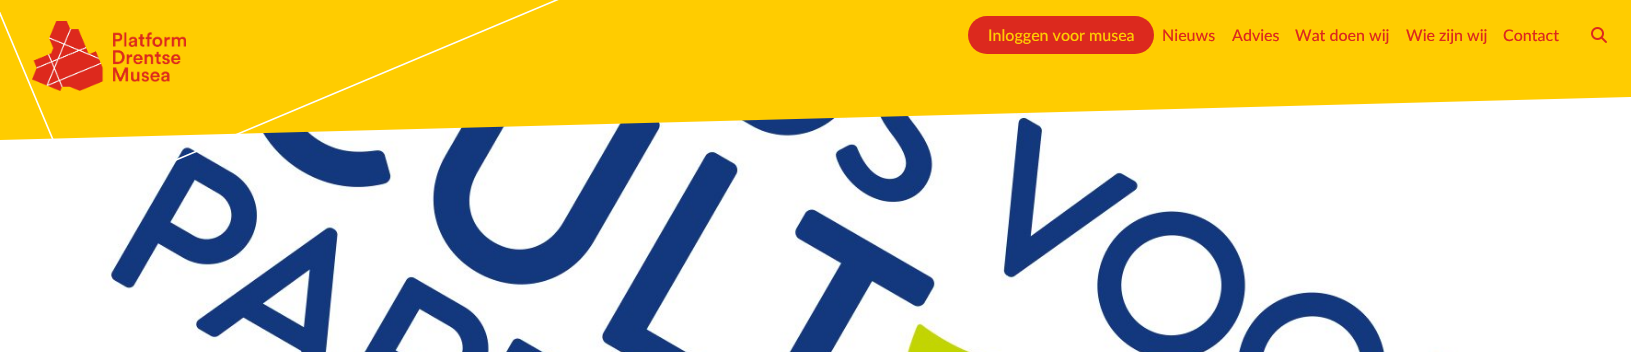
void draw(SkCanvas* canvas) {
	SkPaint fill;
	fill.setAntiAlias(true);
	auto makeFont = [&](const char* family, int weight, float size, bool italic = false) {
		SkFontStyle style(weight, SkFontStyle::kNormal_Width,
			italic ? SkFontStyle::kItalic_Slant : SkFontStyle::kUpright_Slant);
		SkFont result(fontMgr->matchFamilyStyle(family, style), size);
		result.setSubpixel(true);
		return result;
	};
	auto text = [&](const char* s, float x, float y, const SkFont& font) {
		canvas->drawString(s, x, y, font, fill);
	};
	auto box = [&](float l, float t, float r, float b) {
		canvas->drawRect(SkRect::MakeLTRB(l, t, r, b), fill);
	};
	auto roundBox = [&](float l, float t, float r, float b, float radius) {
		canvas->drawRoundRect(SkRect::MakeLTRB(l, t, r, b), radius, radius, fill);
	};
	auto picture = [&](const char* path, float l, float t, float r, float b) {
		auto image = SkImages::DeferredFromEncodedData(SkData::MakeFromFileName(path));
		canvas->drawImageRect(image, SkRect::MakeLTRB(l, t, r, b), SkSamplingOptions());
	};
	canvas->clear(0xFFFFFFFF);
	fill.setColor(0xFFFFCC00);
	box(1627, 0, 1631, 97);
	picture("image2.png", 0, 97, 1631, 352);
	canvas->drawPath(SkPathBuilder().moveTo(-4, 0).lineTo(1627, -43).lineTo(1630, 97).lineTo(0, 140).close().detach(), fill);
	picture("image0.png", 32, 21, 186, 91);
	fill.setStyle(SkPaint::kStroke_Style);
	fill.setStrokeWidth(1.6f);
	fill.setColor(0xFFFFFFFF);
	canvas->drawPath(SkPathBuilder().moveTo(-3.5f, 5).lineTo(334, 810).detach(), fill);
	fill.setStrokeCap(SkPaint::kSquare_Cap);
	fill.setStrokeJoin(SkPaint::kRound_Join);
	canvas->drawPath(SkPathBuilder().moveTo(580.5f, -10).lineTo(-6, 236.5f).detach(), fill);
	fill.setStyle(SkPaint::kFill_Style);
	fill.setColor(0xFFDC291E);
	roundBox(968, 16, 1154, 54, 19);
	picture("image1.png", 1591, 27, 1607, 43);
	auto font1 = makeFont("Lato", 500, 16);
	fill.setColor(0xFFFFCC00);
	text("Inloggen voor musea", 988, 41, font1);
	fill.setColor(0xFFDC291E);
	text("Nieuws", 1162, 41, font1);
	text("Advies", 1232, 41, font1);
	text("Wat doen wij", 1295, 41, font1);
	text("Wie zijn wij", 1406, 41, font1);
	text("Contact", 1503, 41, font1);
}
